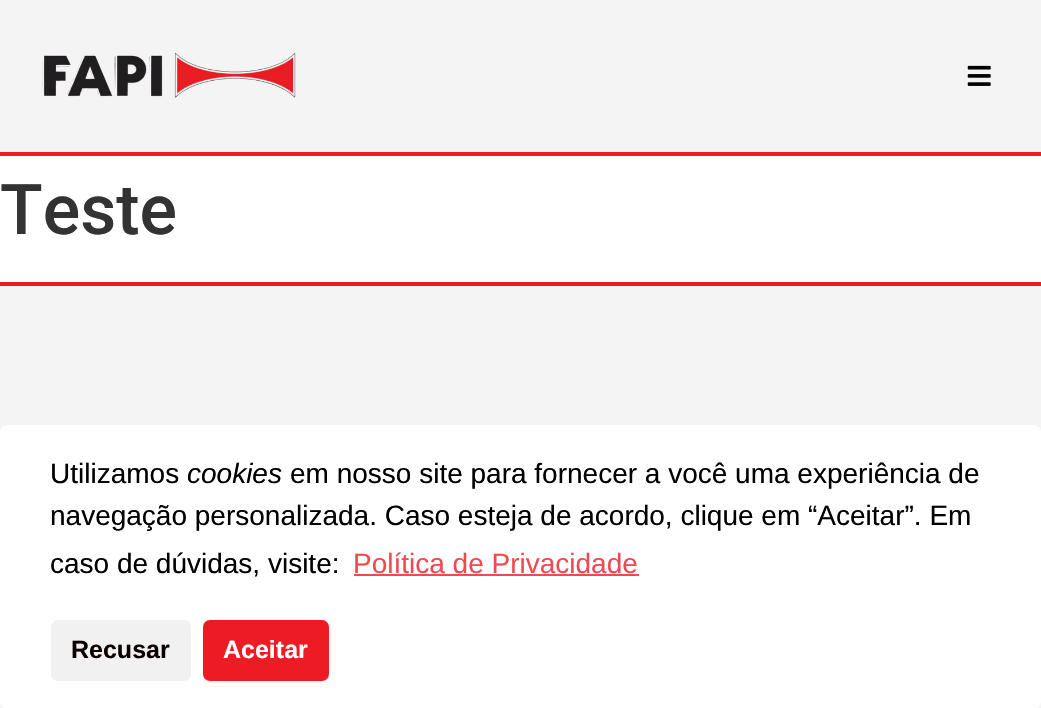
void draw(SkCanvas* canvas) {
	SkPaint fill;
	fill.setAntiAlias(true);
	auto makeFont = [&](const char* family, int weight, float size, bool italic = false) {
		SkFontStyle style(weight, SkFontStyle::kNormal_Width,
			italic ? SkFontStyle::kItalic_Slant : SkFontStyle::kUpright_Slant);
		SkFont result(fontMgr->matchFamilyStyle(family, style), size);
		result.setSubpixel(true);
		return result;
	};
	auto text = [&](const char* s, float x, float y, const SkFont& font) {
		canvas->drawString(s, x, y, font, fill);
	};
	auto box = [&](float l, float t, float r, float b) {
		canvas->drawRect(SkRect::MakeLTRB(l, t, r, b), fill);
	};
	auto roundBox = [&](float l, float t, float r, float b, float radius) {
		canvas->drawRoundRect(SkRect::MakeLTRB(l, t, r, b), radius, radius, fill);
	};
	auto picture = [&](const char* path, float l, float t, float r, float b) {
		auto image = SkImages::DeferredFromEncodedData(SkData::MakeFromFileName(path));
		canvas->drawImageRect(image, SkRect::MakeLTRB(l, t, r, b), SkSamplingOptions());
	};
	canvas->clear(0xFFFFFFFF);
	fill.setColor(0xFFF4F4F4);
	box(0, 0, 1041, 152);
	fill.setColor(0xFFED1B24);
	box(0, 152, 1041, 156);
	picture("image0.png", 42, 52, 296, 98);
	picture("image1.png", 967, 65, 991, 86);
	fill.setColor(0xFFF4F4F4);
	box(0, 286, 1041, 708);
	fill.setColor(0xFFED1B24);
	box(0, 282, 1041, 286);
	fill.setColor(0xFFFFFFFF);
	roundBox(0, 425, 1041, 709, 7);
	fill.setColor(0xFFF14950);
	box(354, 574, 639, 576);
	fill.setColor(0xFFF1F1F1);
	roundBox(51, 620, 191, 681, 7);
	fill.setColor(0xFFED1B24);
	roundBox(203, 620, 329, 681, 7);
	auto font1 = makeFont("Roboto", 500, 70);
	fill.setColor(0xFF333333);
	text("Teste", 0, 234, font1);
	auto font2 = makeFont("Liberation Sans", 400, 28);
	fill.setColor(0xFF000000);
	text("Utilizamos", 50, 483, font2);
	auto font3 = makeFont("Liberation Sans", 400, 28, true);
	text("cookies", 187, 483, font3);
	text("em nosso site para fornecer a você uma experiência de", 290, 483, font2);
	text("navegação personalizada. Caso esteja de acordo, clique em “Aceitar”. Em", 50, 525, font2);
	text("caso de dúvidas, visite:", 50, 573, font2);
	fill.setColor(0xFFF14950);
	text("Política de Privacidade", 353, 573, font2);
	auto font4 = makeFont("Liberation Sans", 700, 25);
	fill.setColor(0xFF0A0000);
	text("Recusar", 71, 658, font4);
	fill.setColor(0xFFFFFFFF);
	text("Aceitar", 223, 658, font4);
}
